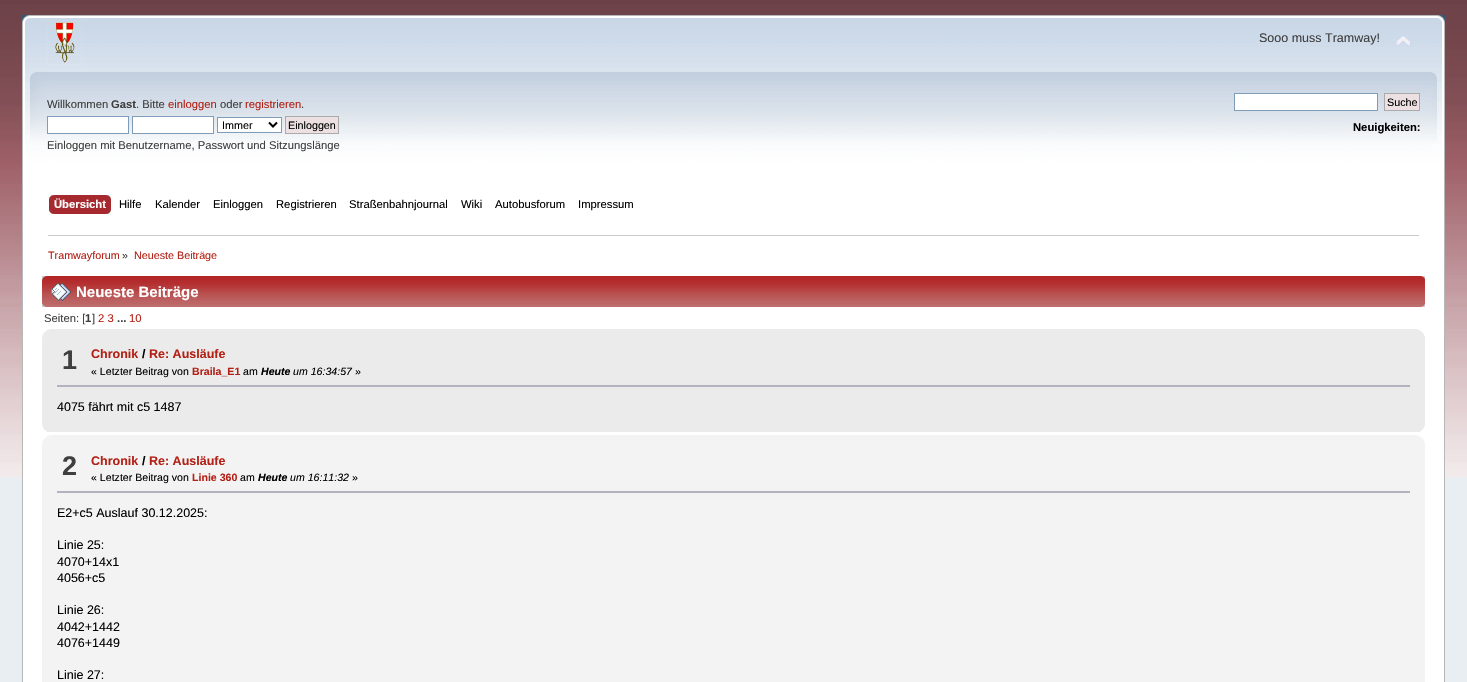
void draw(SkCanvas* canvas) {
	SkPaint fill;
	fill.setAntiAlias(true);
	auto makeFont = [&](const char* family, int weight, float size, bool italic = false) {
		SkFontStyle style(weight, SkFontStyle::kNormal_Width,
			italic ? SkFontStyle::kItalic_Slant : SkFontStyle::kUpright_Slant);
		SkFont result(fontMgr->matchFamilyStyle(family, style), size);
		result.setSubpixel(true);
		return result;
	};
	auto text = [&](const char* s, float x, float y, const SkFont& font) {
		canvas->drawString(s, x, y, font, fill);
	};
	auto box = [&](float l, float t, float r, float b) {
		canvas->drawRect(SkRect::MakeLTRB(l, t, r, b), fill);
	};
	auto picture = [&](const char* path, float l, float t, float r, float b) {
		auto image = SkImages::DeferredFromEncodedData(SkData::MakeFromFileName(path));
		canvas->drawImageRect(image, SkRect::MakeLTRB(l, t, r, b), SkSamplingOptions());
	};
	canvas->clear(0xFFE9EEF2);
	picture("image0.png", 0, 0, 1467, 477);
	picture("image1.png", 22, 15, 1431, 229);
	picture("image2.png", 1431, 15, 1445, 229);
	picture("image3.png", 47, 20, 82, 65);
	picture("image4.png", 1396, 35, 1411, 47);
	fill.setColor(0xFFFFFFFF);
	canvas->drawRect(SkRect::MakeLTRB(47.5f, 116.5f, 128.5f, 133.5f), fill);
	fill.setStyle(SkPaint::kStroke_Style);
	fill.setStrokeWidth(1);
	fill.setColor(0xFF7F9DB9);
	canvas->drawRect(SkRect::MakeLTRB(47.5f, 116.5f, 128.5f, 133.5f), fill);
	fill.setStyle(SkPaint::kFill_Style);
	fill.setColor(0xFFFFFFFF);
	canvas->drawRect(SkRect::MakeLTRB(132.5f, 116.5f, 213.5f, 133.5f), fill);
	fill.setStyle(SkPaint::kStroke_Style);
	fill.setColor(0xFF7F9DB9);
	canvas->drawRect(SkRect::MakeLTRB(132.5f, 116.5f, 213.5f, 133.5f), fill);
	fill.setStyle(SkPaint::kFill_Style);
	fill.setColor(0xFFFFFFFF);
	canvas->drawRect(SkRect::MakeLTRB(217.5f, 117.5f, 281.5f, 132.5f), fill);
	fill.setStyle(SkPaint::kStroke_Style);
	fill.setColor(0xFF7F9DB9);
	canvas->drawRect(SkRect::MakeLTRB(217.5f, 117.5f, 281.5f, 132.5f), fill);
	fill.setStrokeWidth(2);
	fill.setColor(0xFF000000);
	canvas->drawPath(SkPathBuilder().moveTo(269, 122.5f).lineTo(273, 126.5f).lineTo(277, 122.5f).detach(), fill);
	fill.setStyle(SkPaint::kFill_Style);
	fill.setColor(0xFFECE0E2);
	canvas->drawRect(SkRect::MakeLTRB(285.5f, 116.5f, 338.5f, 133.5f), fill);
	fill.setStyle(SkPaint::kStroke_Style);
	fill.setStrokeWidth(1);
	fill.setColor(0xFFAAAAAA);
	canvas->drawRect(SkRect::MakeLTRB(285.5f, 116.5f, 338.5f, 133.5f), fill);
	fill.setStyle(SkPaint::kFill_Style);
	fill.setColor(0xFFFFFFFF);
	canvas->drawRect(SkRect::MakeLTRB(1234.5f, 93.5f, 1377.5f, 110.5f), fill);
	fill.setStyle(SkPaint::kStroke_Style);
	fill.setColor(0xFF7F9DB9);
	canvas->drawRect(SkRect::MakeLTRB(1234.5f, 93.5f, 1377.5f, 110.5f), fill);
	fill.setStyle(SkPaint::kFill_Style);
	fill.setColor(0xFFECE0E2);
	canvas->drawRect(SkRect::MakeLTRB(1384.5f, 93.5f, 1419.5f, 110.5f), fill);
	fill.setStyle(SkPaint::kStroke_Style);
	fill.setColor(0xFFAAAAAA);
	canvas->drawRect(SkRect::MakeLTRB(1384.5f, 93.5f, 1419.5f, 110.5f), fill);
	picture("image5.png", 54, 195, 111, 214);
	picture("image6.png", 49, 195, 54, 214);
	fill.setStyle(SkPaint::kFill_Style);
	fill.setColor(0xFFFFFFFF);
	box(23, 229, 1444, 682);
	fill.setColor(0xFFB7B7B7);
	box(22, 229, 23, 682);
	box(1444, 229, 1445, 682);
	fill.setColor(0xFFCCCCCC);
	box(48, 235, 1419, 236);
	picture("image7.png", 42, 276, 1420, 307);
	picture("image8.png", 1420, 276, 1425, 307);
	picture("image9.png", 51, 283, 71, 301);
	fill.setColor(0xFFEBEBEB);
	box(42, 329, 1425, 432);
	picture("image10.png", 42, 329, 50, 337);
	picture("image11.png", 1417, 329, 1425, 337);
	fill.setColor(0xFFB3B3BF);
	box(57, 385, 1410, 387);
	picture("image12.png", 42, 425, 47, 432);
	picture("image13.png", 1420, 425, 1425, 432);
	fill.setColor(0xFFF3F3F3);
	box(42, 435, 1425, 682);
	picture("image14.png", 42, 435, 50, 443);
	picture("image15.png", 1417, 435, 1425, 443);
	fill.setColor(0xFFB3B3BF);
	box(57, 491, 1410, 493);
	auto font1 = makeFont("Liberation Sans", 400, 12.5f);
	fill.setColor(0xFF3F3F3F);
	text("Sooo muss Tramway!", 1259, 42, font1);
	auto font2 = makeFont("Liberation Sans", 400, 11.25f);
	text("Willkommen", 47, 108, font2);
	auto font3 = makeFont("Liberation Sans", 700, 11.25f);
	text("Gast", 111, 108, font3);
	text(". Bitte", 136, 108, font2);
	fill.setColor(0xFFB32015);
	text("einloggen", 168, 108, font2);
	fill.setColor(0xFF3F3F3F);
	text("oder", 220, 108, font2);
	fill.setColor(0xFFB32015);
	text("registrieren", 245, 108, font2);
	fill.setColor(0xFF3F3F3F);
	text(".", 301, 108, font2);
	auto font4 = makeFont("Liberation Sans", 400, 10.75f);
	fill.setColor(0xFF000000);
	text("Immer", 222, 129, font4);
	text("Einloggen", 288, 129, font4);
	fill.setColor(0xFF3F3F3F);
	text("Einloggen mit Benutzername, Passwort und Sitzungslänge", 47, 149, font2);
	fill.setColor(0xFF000000);
	text("Suche", 1387, 106, font4);
	text("Neuigkeiten:", 1353, 131, font3);
	fill.setColor(0xFFFFFFFF);
	text("Übersicht", 54, 208, font3);
	fill.setColor(0xFF000000);
	text("Hilfe", 119, 208, font2);
	text("Kalender", 155, 208, font2);
	text("Einloggen", 213, 208, font2);
	text("Registrieren", 276, 208, font2);
	text("Straßenbahnjournal", 349, 208, font2);
	text("Wiki", 461, 208, font2);
	text("Autobusforum", 495, 208, font2);
	text("Impressum", 578, 208, font2);
	fill.setColor(0xFFB32015);
	text("Tramwayforum", 48, 259, font4);
	fill.setColor(0xFF3F3F3F);
	text("»", 122, 259, font4);
	fill.setColor(0xFFB32015);
	text("Neueste Beiträge", 134, 259, font4);
	auto font5 = makeFont("Liberation Sans", 700, 15);
	fill.setColor(0xFFFFFFFF);
	text("Neueste Beiträge", 76, 297, font5);
	fill.setColor(0xFF3F3F3F);
	text("Seiten: [", 44, 322, font2);
	text("1", 85, 322, font3);
	text("]", 92, 322, font2);
	fill.setColor(0xFFB32015);
	text("2 3", 98, 322, font2);
	fill.setColor(0xFF3F3F3F);
	text("...", 117, 322, font3);
	fill.setColor(0xFFB32015);
	text("10", 129, 322, font2);
	auto font6 = makeFont("Liberation Sans", 700, 27);
	fill.setColor(0xFF3F3F3F);
	text("1", 62, 369, font6);
	auto font7 = makeFont("Liberation Sans", 700, 12.5f);
	fill.setColor(0xFFB32015);
	text("Chronik", 91, 358, font7);
	fill.setColor(0xFF000000);
	text("/", 142, 358, font7);
	fill.setColor(0xFFB32015);
	text("Re: Ausläufe", 149, 358, font7);
	auto font8 = makeFont("Liberation Sans", 400, 10.6f);
	fill.setColor(0xFF000000);
	text("« Letzter Beitrag von", 91, 375, font8);
	auto font9 = makeFont("Liberation Sans", 700, 10.6f);
	fill.setColor(0xFFB32015);
	text("Braila_E1", 192, 375, font9);
	fill.setColor(0xFF000000);
	text("am", 243, 375, font8);
	auto font10 = makeFont("Liberation Sans", 700, 10.6f, true);
	text("Heute", 261, 375, font10);
	auto font11 = makeFont("Liberation Sans", 400, 10.6f, true);
	text("um 16:34:57", 293, 375, font11);
	text("»", 355, 375, font8);
	text("4075 fährt mit c5 1487", 57, 411, font1);
	fill.setColor(0xFF3F3F3F);
	text("2", 62, 475, font6);
	fill.setColor(0xFFB32015);
	text("Chronik", 91, 465, font7);
	fill.setColor(0xFF000000);
	text("/", 142, 465, font7);
	fill.setColor(0xFFB32015);
	text("Re: Ausläufe", 149, 465, font7);
	fill.setColor(0xFF000000);
	text("« Letzter Beitrag von", 91, 481, font8);
	fill.setColor(0xFFB32015);
	text("Linie 360", 192, 481, font9);
	fill.setColor(0xFF000000);
	text("am", 240, 481, font8);
	text("Heute", 258, 481, font10);
	text("um 16:11:32", 290, 481, font11);
	text("»", 352, 481, font8);
	text("E2+c5 Auslauf 30.12.2025:", 57, 517, font1);
	text("Linie 25:", 57, 549, font1);
	text("4070+14x1", 57, 566, font1);
	text("4056+c5", 57, 582, font1);
	text("Linie 26:", 57, 614, font1);
	text("4042+1442", 57, 631, font1);
	text("4076+1449", 57, 647, font1);
	text("Linie 27:", 57, 679, font1);
}
